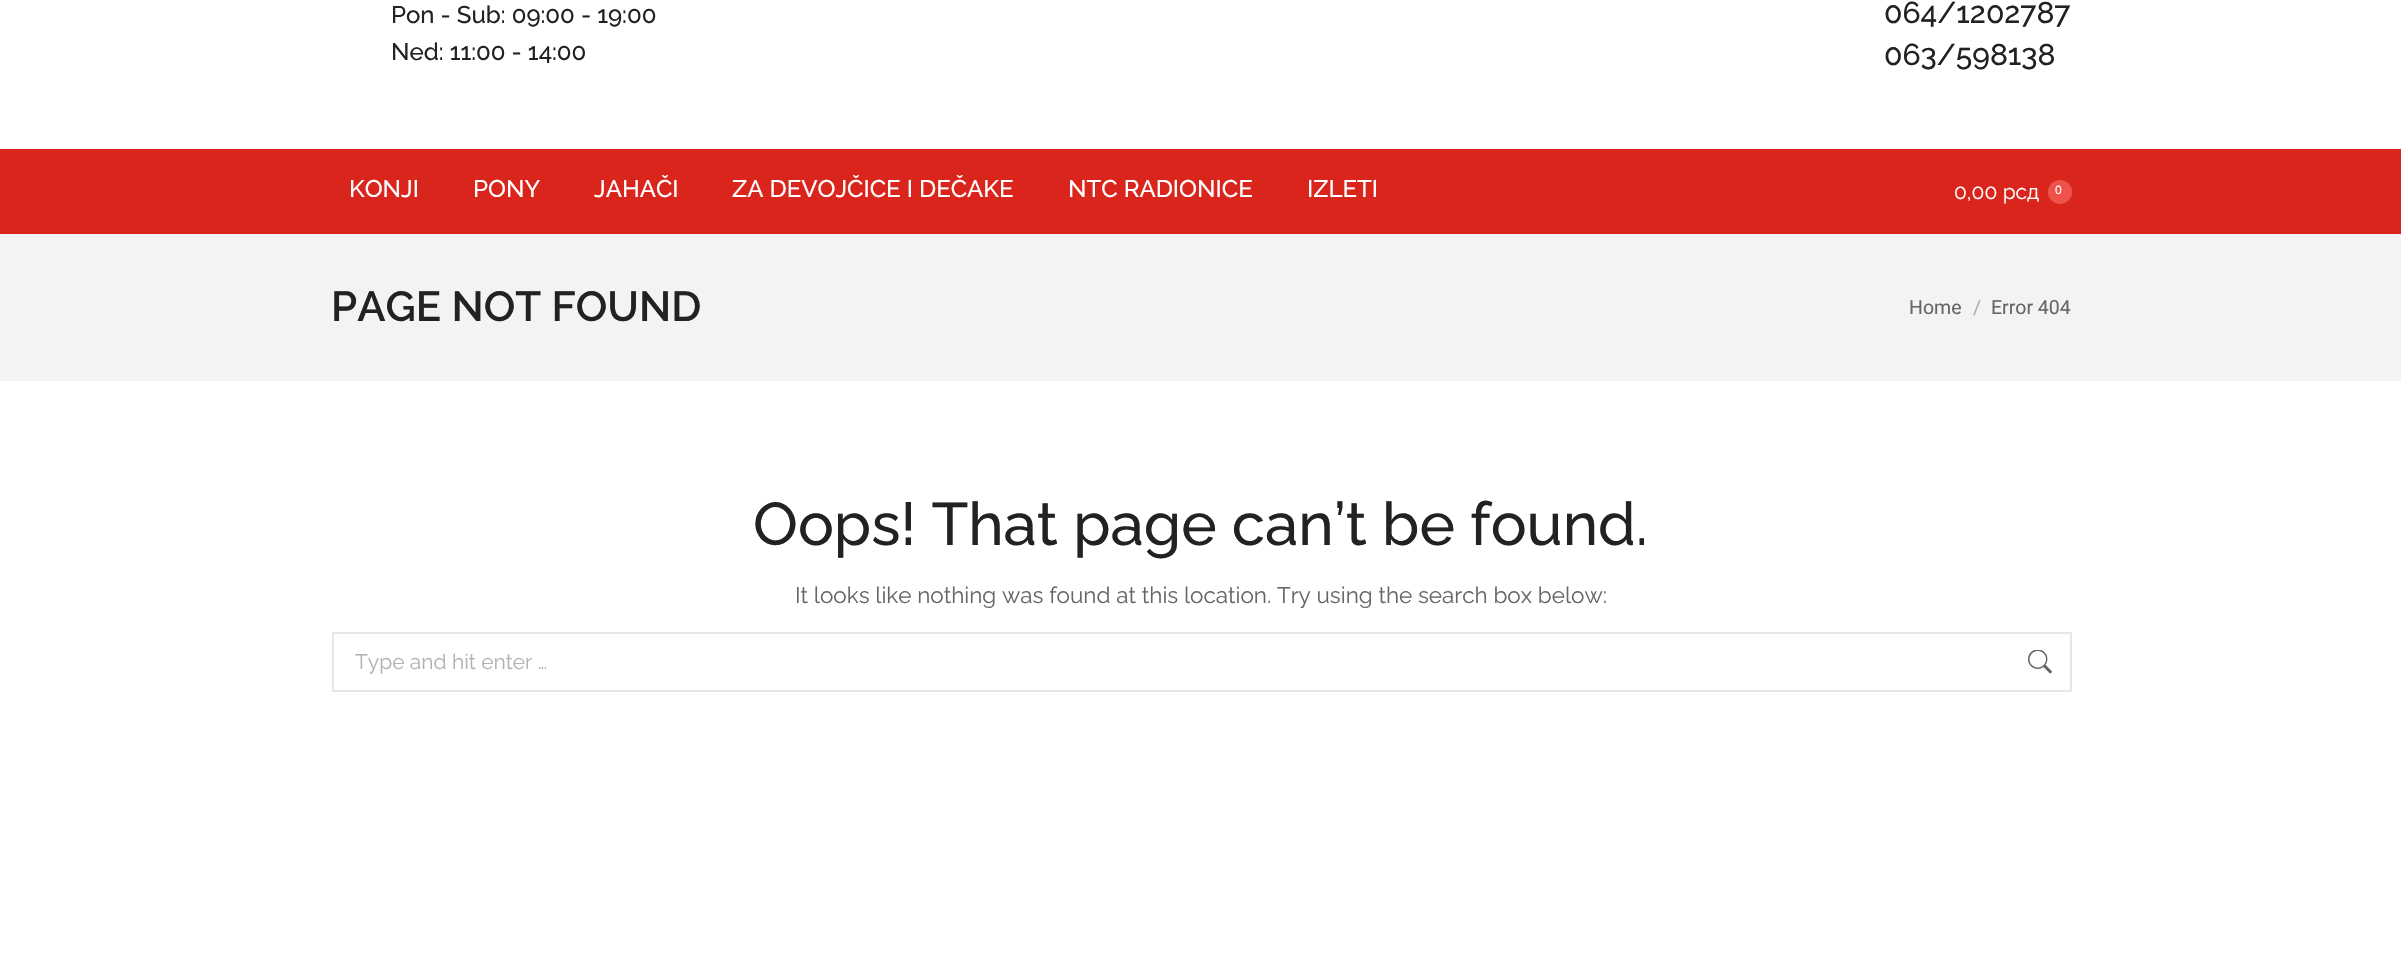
void draw(SkCanvas* canvas) {
	SkPaint fill;
	fill.setAntiAlias(true);
	auto makeFont = [&](const char* family, int weight, float size, bool italic = false) {
		SkFontStyle style(weight, SkFontStyle::kNormal_Width,
			italic ? SkFontStyle::kItalic_Slant : SkFontStyle::kUpright_Slant);
		SkFont result(fontMgr->matchFamilyStyle(family, style), size);
		result.setSubpixel(true);
		return result;
	};
	auto text = [&](const char* s, float x, float y, const SkFont& font) {
		canvas->drawString(s, x, y, font, fill);
	};
	auto box = [&](float l, float t, float r, float b) {
		canvas->drawRect(SkRect::MakeLTRB(l, t, r, b), fill);
	};
	auto picture = [&](const char* path, float l, float t, float r, float b) {
		auto image = SkImages::DeferredFromEncodedData(SkData::MakeFromFileName(path));
		canvas->drawImageRect(image, SkRect::MakeLTRB(l, t, r, b), SkSamplingOptions());
	};
	canvas->clear(0xFFFFFFFF);
	fill.setColor(0xFFDA251C);
	box(0, 149, 2401, 234);
	fill.setColor(0xFFEF524A);
	canvas->drawCircle(2060, 192, 12, fill);
	fill.setColor(0xFFF3F3F5);
	box(0, 234, 2401, 381);
	fill.setStyle(SkPaint::kStroke_Style);
	fill.setStrokeWidth(2);
	fill.setColor(0xFFE6E6E6);
	canvas->drawRect(SkRect::MakeLTRB(333, 633, 2071, 691), fill);
	picture("image0.png", 2028, 650, 2052, 674);
	auto font1 = makeFont("Raleway", 500, 24);
	fill.setStyle(SkPaint::kFill_Style);
	fill.setColor(0xFF222222);
	text("Pon - Sub: 09:00 - 19:00", 391, 23, font1);
	text("Ned: 11:00 - 14:00", 391, 60, font1);
	auto font2 = makeFont("Raleway", 500, 30);
	text("064/1202787", 1884, 23, font2);
	text("063/598138", 1884, 65, font2);
	fill.setColor(0xFFFFFFFF);
	text("KONJI", 349, 197, font1);
	text("PONY", 473, 197, font1);
	text("JAHAČI", 594, 197, font1);
	text("ZA DEVOJČICE I DEČAKE", 732, 197, font1);
	text("NTC RADIONICE", 1068, 197, font1);
	text("IZLETI", 1307, 197, font1);
	auto font3 = makeFont("Raleway", 400, 21);
	text("0,00 рсд", 1954, 199, font3);
	auto font4 = makeFont("Liberation Sans", 400, 12);
	text("0", 2055, 194, font4);
	auto font5 = makeFont("Raleway", 600, 42);
	fill.setColor(0xFF222222);
	text("PAGE NOT FOUND", 331, 321, font5);
	auto font6 = makeFont("Roboto", 400, 19.5f);
	fill.setColor(0xFF666666);
	text("Home", 1909, 314, font6);
	fill.setColor(0xFFADADAE);
	text("/", 1973, 314, font6);
	fill.setColor(0xFF666666);
	text("Error 404", 1991, 314, font6);
	auto font7 = makeFont("Raleway", 500, 60);
	fill.setColor(0xFF222222);
	text("Oops! That page can’t be found.", 753, 545, font7);
	auto font8 = makeFont("Raleway", 400, 22.5f);
	fill.setColor(0xFF666666);
	text("It looks like nothing was found at this location. Try using the search box below:", 795, 603, font8);
	fill.setColor(0xFFB3B3B3);
	text("Type and hit enter …", 355, 669, font3);
}
